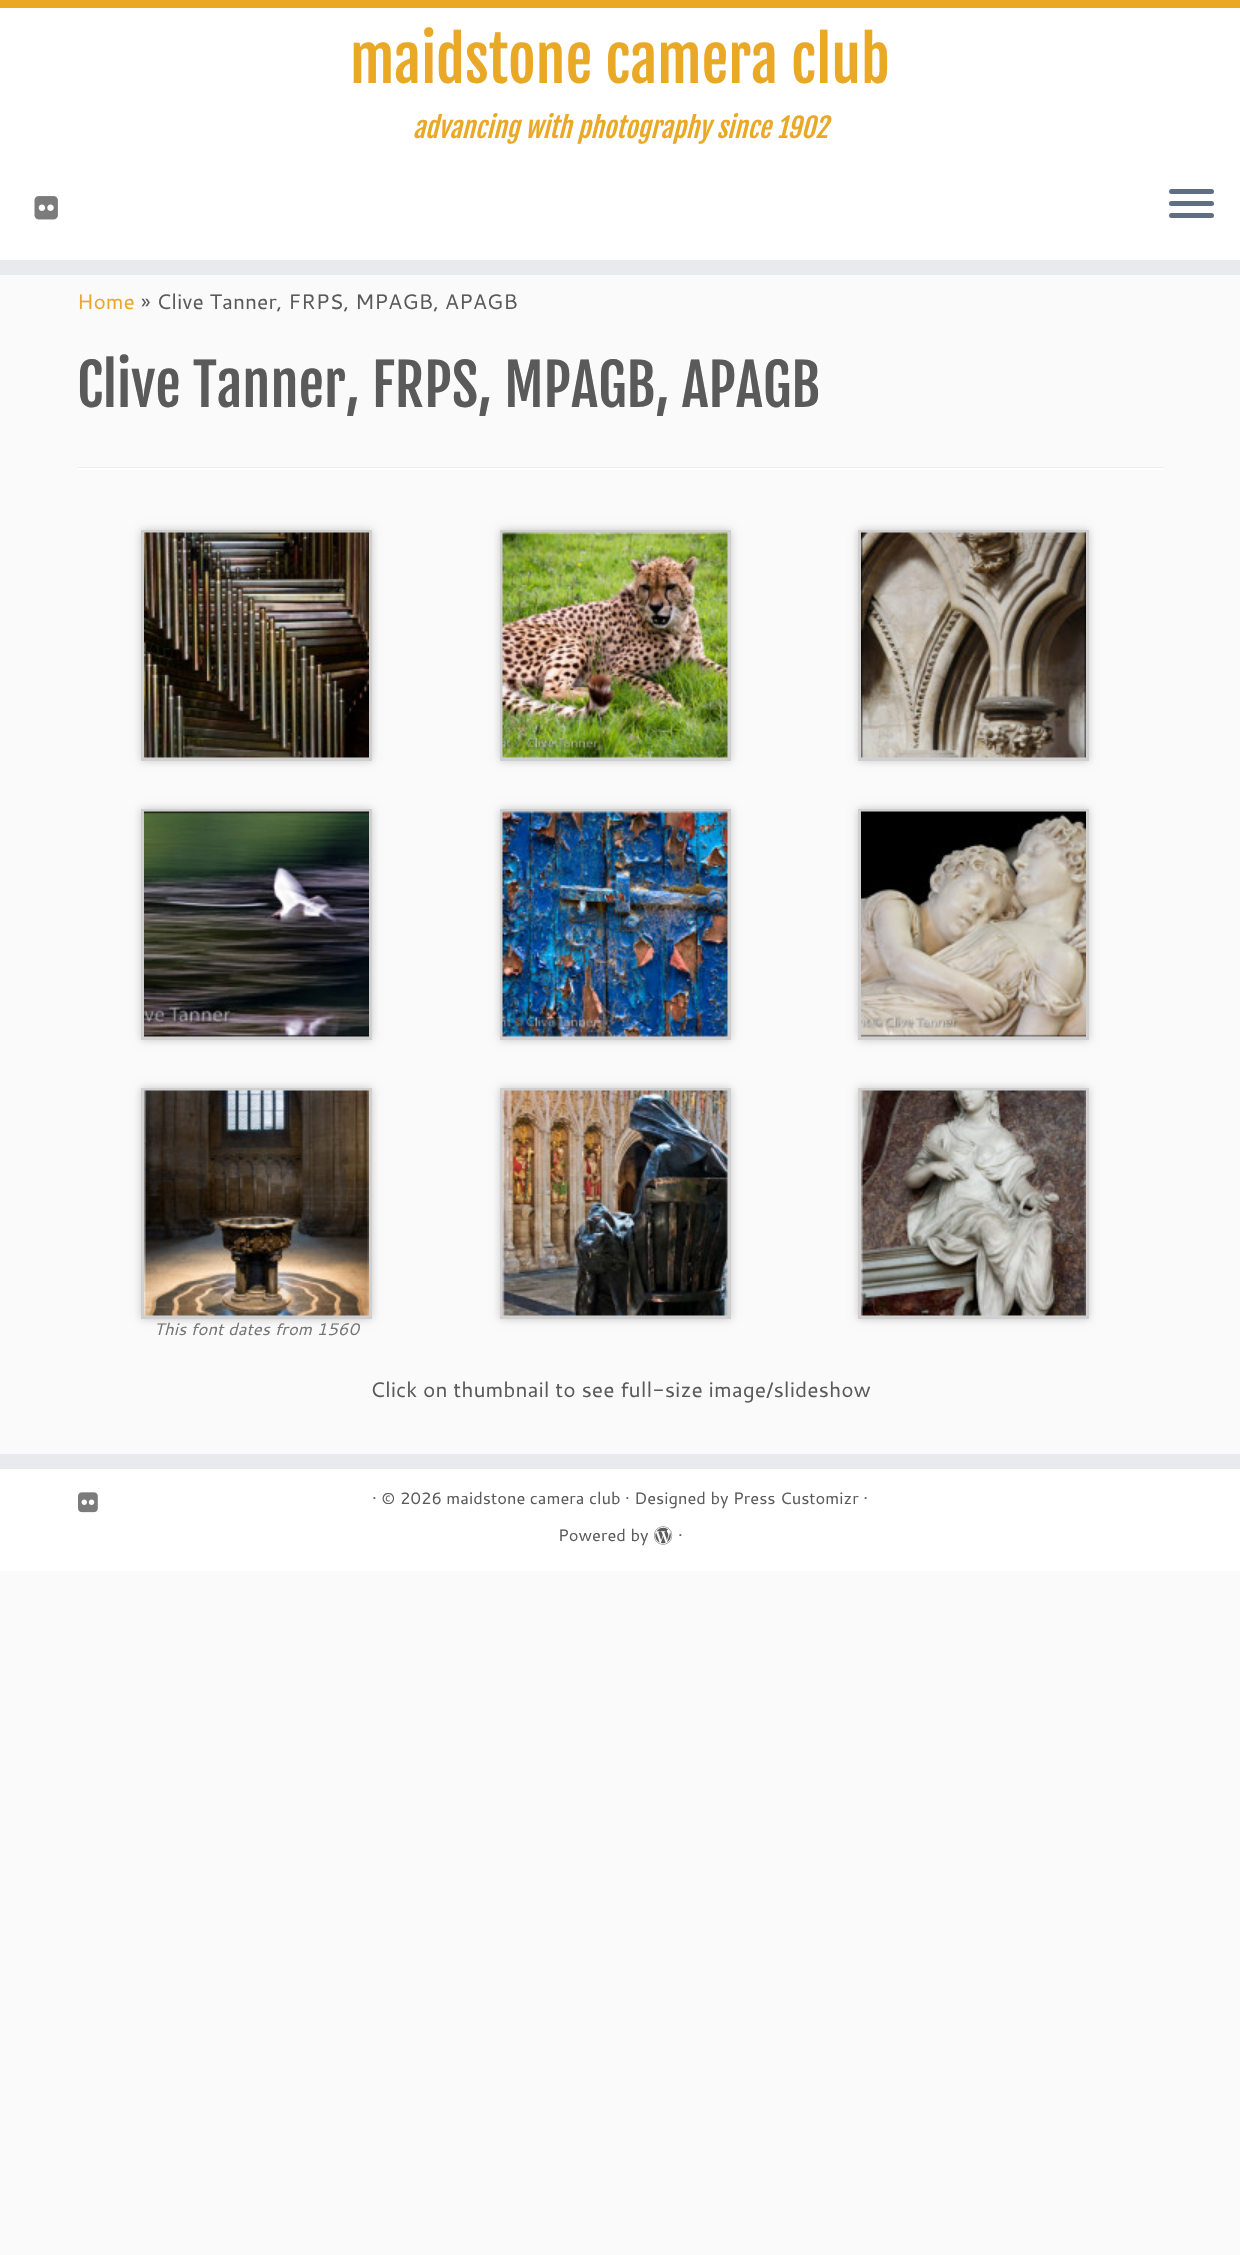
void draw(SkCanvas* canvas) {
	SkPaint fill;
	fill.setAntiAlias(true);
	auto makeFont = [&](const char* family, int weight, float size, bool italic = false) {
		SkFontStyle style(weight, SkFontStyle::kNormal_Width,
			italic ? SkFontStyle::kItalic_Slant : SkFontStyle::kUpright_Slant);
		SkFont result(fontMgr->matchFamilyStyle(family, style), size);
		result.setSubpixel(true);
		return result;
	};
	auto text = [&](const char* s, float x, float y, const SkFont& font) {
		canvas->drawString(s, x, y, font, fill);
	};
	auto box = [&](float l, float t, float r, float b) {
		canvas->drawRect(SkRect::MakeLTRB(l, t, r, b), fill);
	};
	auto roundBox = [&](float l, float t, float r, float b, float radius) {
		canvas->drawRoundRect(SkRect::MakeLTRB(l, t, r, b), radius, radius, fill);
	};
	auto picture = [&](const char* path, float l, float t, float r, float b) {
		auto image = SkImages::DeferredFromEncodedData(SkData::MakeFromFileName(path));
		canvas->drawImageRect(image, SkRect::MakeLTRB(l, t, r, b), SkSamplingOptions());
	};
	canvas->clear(0xFFFAFAFA);
	fill.setColor(0xFFFFFFFF);
	box(0, 8, 1240, 260);
	fill.setColor(0xFFE9A825);
	box(0, 0, 1240, 8);
	fill.setColor(0xFFE9EAEE);
	box(0, 260, 1240, 275);
	picture("image0.png", 34, 196, 58, 220);
	fill.setColor(0xFF5F6F81);
	roundBox(1169, 189, 1214, 194, 2.5f);
	roundBox(1169, 201, 1214, 206, 2.5f);
	roundBox(1169, 213, 1214, 218, 2.5f);
	fill.setColor(0xFFEEEEEE);
	box(78, 467, 1164, 468);
	fill.setColor(0xFFFFFFFF);
	box(78, 468, 1164, 470);
	fill.setColor(0x33000000);
	fill.setMaskFilter(SkMaskFilter::MakeBlur(kNormal_SkBlurStyle, 4));
	canvas->drawRect(SkRect::MakeLTRB(141, 530, 372, 761), fill);
	fill.setMaskFilter(nullptr);
	fill.setStyle(SkPaint::kStroke_Style);
	fill.setStrokeWidth(3);
	fill.setColor(0xFFCFCFCF);
	canvas->drawRect(SkRect::MakeLTRB(142.5f, 531.5f, 370.5f, 759.5f), fill);
	picture("image1.png", 144, 532, 369, 758);
	fill.setStyle(SkPaint::kFill_Style);
	fill.setColor(0x33000000);
	fill.setMaskFilter(SkMaskFilter::MakeBlur(kNormal_SkBlurStyle, 4));
	canvas->drawRect(SkRect::MakeLTRB(500, 530, 731, 761), fill);
	fill.setMaskFilter(nullptr);
	fill.setStyle(SkPaint::kStroke_Style);
	fill.setColor(0xFFCFCFCF);
	canvas->drawRect(SkRect::MakeLTRB(501.5f, 531.5f, 729.5f, 759.5f), fill);
	picture("image2.png", 502, 532, 728, 758);
	fill.setStyle(SkPaint::kFill_Style);
	fill.setColor(0x33000000);
	fill.setMaskFilter(SkMaskFilter::MakeBlur(kNormal_SkBlurStyle, 4));
	canvas->drawRect(SkRect::MakeLTRB(858, 530, 1089, 761), fill);
	fill.setMaskFilter(nullptr);
	fill.setStyle(SkPaint::kStroke_Style);
	fill.setColor(0xFFCFCFCF);
	canvas->drawRect(SkRect::MakeLTRB(859.5f, 531.5f, 1087.5f, 759.5f), fill);
	picture("image3.png", 861, 532, 1086, 758);
	fill.setStyle(SkPaint::kFill_Style);
	fill.setColor(0x33000000);
	fill.setMaskFilter(SkMaskFilter::MakeBlur(kNormal_SkBlurStyle, 4));
	canvas->drawRect(SkRect::MakeLTRB(141, 809, 372, 1040), fill);
	fill.setMaskFilter(nullptr);
	fill.setStyle(SkPaint::kStroke_Style);
	fill.setColor(0xFFCFCFCF);
	canvas->drawRect(SkRect::MakeLTRB(142.5f, 810.5f, 370.5f, 1038.5f), fill);
	picture("image4.png", 144, 811, 369, 1037);
	fill.setStyle(SkPaint::kFill_Style);
	fill.setColor(0x33000000);
	fill.setMaskFilter(SkMaskFilter::MakeBlur(kNormal_SkBlurStyle, 4));
	canvas->drawRect(SkRect::MakeLTRB(500, 809, 731, 1040), fill);
	fill.setMaskFilter(nullptr);
	fill.setStyle(SkPaint::kStroke_Style);
	fill.setColor(0xFFCFCFCF);
	canvas->drawRect(SkRect::MakeLTRB(501.5f, 810.5f, 729.5f, 1038.5f), fill);
	picture("image5.png", 502, 811, 728, 1037);
	fill.setStyle(SkPaint::kFill_Style);
	fill.setColor(0x33000000);
	fill.setMaskFilter(SkMaskFilter::MakeBlur(kNormal_SkBlurStyle, 4));
	canvas->drawRect(SkRect::MakeLTRB(858, 809, 1089, 1040), fill);
	fill.setMaskFilter(nullptr);
	fill.setStyle(SkPaint::kStroke_Style);
	fill.setColor(0xFFCFCFCF);
	canvas->drawRect(SkRect::MakeLTRB(859.5f, 810.5f, 1087.5f, 1038.5f), fill);
	picture("image6.png", 861, 811, 1086, 1037);
	fill.setStyle(SkPaint::kFill_Style);
	fill.setColor(0x33000000);
	fill.setMaskFilter(SkMaskFilter::MakeBlur(kNormal_SkBlurStyle, 4));
	canvas->drawRect(SkRect::MakeLTRB(141, 1088, 372, 1319), fill);
	fill.setMaskFilter(nullptr);
	fill.setStyle(SkPaint::kStroke_Style);
	fill.setColor(0xFFCFCFCF);
	canvas->drawRect(SkRect::MakeLTRB(142.5f, 1089.5f, 370.5f, 1317.5f), fill);
	picture("image7.png", 144, 1090, 369, 1316);
	fill.setStyle(SkPaint::kFill_Style);
	fill.setColor(0x33000000);
	fill.setMaskFilter(SkMaskFilter::MakeBlur(kNormal_SkBlurStyle, 4));
	canvas->drawRect(SkRect::MakeLTRB(500, 1088, 731, 1319), fill);
	fill.setMaskFilter(nullptr);
	fill.setStyle(SkPaint::kStroke_Style);
	fill.setColor(0xFFCFCFCF);
	canvas->drawRect(SkRect::MakeLTRB(501.5f, 1089.5f, 729.5f, 1317.5f), fill);
	picture("image8.png", 502, 1090, 728, 1316);
	fill.setStyle(SkPaint::kFill_Style);
	fill.setColor(0x33000000);
	fill.setMaskFilter(SkMaskFilter::MakeBlur(kNormal_SkBlurStyle, 4));
	canvas->drawRect(SkRect::MakeLTRB(858, 1088, 1089, 1319), fill);
	fill.setMaskFilter(nullptr);
	fill.setStyle(SkPaint::kStroke_Style);
	fill.setColor(0xFFCFCFCF);
	canvas->drawRect(SkRect::MakeLTRB(859.5f, 1089.5f, 1087.5f, 1317.5f), fill);
	picture("image9.png", 861, 1090, 1086, 1316);
	fill.setStyle(SkPaint::kFill_Style);
	fill.setColor(0xFFE9EAEE);
	box(0, 1454, 1240, 1469);
	fill.setColor(0xFFFFFFFF);
	box(0, 1469, 1240, 1571);
	picture("image10.png", 78, 1492, 98, 1513);
	picture("image11.png", 654, 1526, 673, 1545);
	auto font1 = makeFont("Fjalla One", 400, 60);
	fill.setColor(0xFFE9A825);
	text("maidstone camera club", 350, 83, font1);
	auto font2 = makeFont("Fjalla One", 400, 27, true);
	text("advancing with photography since 1902", 413, 138, font2);
	auto font3 = makeFont("Cantarell", 400, 21);
	text("Home", 77, 309, font3);
	fill.setColor(0xFF5A5A5A);
	text("» Clive Tanner, FRPS, MPAGB, APAGB", 141, 309, font3);
	auto font4 = makeFont("Fjalla One", 400, 57);
	text("Clive Tanner, FRPS, MPAGB, APAGB", 77, 407, font4);
	auto font5 = makeFont("Cantarell", 400, 16.75f, true);
	fill.setColor(0xFF757575);
	text("This font dates from 1560", 154, 1335, font5);
	fill.setColor(0xFF5A5A5A);
	text("Click on thumbnail to see full-size image/slideshow", 370, 1397, font3);
	auto font6 = makeFont("Cantarell", 400, 16.5f);
	text("· © 2026 maidstone camera club · Designed by Press Customizr ·", 372, 1504, font6);
	text("Powered by", 558, 1541, font6);
	text("·", 678, 1541, font6);
}
